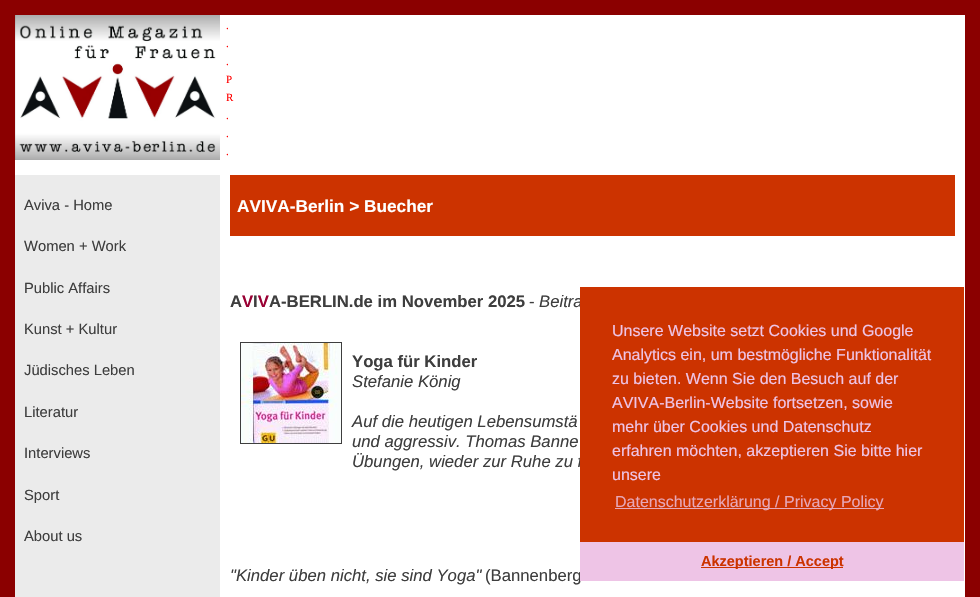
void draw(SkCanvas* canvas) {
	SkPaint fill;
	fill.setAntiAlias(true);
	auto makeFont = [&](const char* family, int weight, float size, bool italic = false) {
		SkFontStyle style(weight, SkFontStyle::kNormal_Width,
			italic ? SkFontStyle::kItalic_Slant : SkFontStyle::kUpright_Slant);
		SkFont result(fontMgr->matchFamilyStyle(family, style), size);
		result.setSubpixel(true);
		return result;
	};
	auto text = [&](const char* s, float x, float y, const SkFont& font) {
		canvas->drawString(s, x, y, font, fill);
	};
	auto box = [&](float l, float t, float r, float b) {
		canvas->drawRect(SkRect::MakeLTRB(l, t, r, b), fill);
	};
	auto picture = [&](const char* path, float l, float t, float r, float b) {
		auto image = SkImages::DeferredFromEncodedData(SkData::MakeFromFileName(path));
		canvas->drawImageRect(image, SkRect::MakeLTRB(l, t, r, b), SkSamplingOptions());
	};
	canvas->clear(0xFF8B0000);
	fill.setColor(0xFFFFFFFF);
	box(15, 15, 965, 175);
	picture("image0.png", 15, 15, 220, 160);
	fill.setColor(0xFFEBEBEB);
	box(15, 175, 220, 597);
	fill.setColor(0xFFFFFFFF);
	box(220, 175, 965, 597);
	fill.setColor(0xFFCC3300);
	box(230, 175, 955, 236);
	fill.setStyle(SkPaint::kStroke_Style);
	fill.setStrokeWidth(1);
	fill.setColor(0xFF3E3E3E);
	canvas->drawRect(SkRect::MakeLTRB(240.5f, 342.5f, 341.5f, 443.5f), fill);
	picture("image1.png", 241, 343, 341, 443);
	auto font1 = makeFont("Liberation Serif", 400, 11);
	fill.setStyle(SkPaint::kFill_Style);
	fill.setColor(0xFFFF0000);
	text(".", 226, 29, font1);
	text(".", 226, 47, font1);
	text(".", 226, 65, font1);
	text("P", 226, 83, font1);
	text("R", 226, 101, font1);
	text(".", 226, 119, font1);
	text(".", 226, 137, font1);
	text(".", 226, 155, font1);
	auto font2 = makeFont("Liberation Sans", 400, 14.75f);
	fill.setColor(0xFF3E3E3E);
	text("Aviva - Home", 24, 210, font2);
	text("Women + Work", 24, 251, font2);
	text("Public Affairs", 24, 293, font2);
	text("Kunst + Kultur", 24, 334, font2);
	text("Jüdisches Leben", 24, 375, font2);
	text("Literatur", 24, 417, font2);
	text("Interviews", 24, 458, font2);
	text("Sport", 24, 500, font2);
	text("About us", 24, 541, font2);
	auto font3 = makeFont("Liberation Sans", 700, 17.25f);
	fill.setColor(0xFFFFFFFF);
	text("AVIVA-Berlin > Buecher", 237, 212, font3);
	auto font4 = makeFont("Liberation Sans", 700, 16.7f);
	fill.setColor(0xFF3E3E3E);
	text("A", 230, 307, font4);
	fill.setColor(0xFF990033);
	text("V V", 242, 307, font4);
	fill.setColor(0xFF3E3E3E);
	text("A-BERLIN.de im November 2025", 269, 307, font4);
	auto font5 = makeFont("Liberation Sans", 400, 16.7f, true);
	text("Beitra", 539, 307, font5);
	text("I", 253, 307, font4);
	auto font6 = makeFont("Liberation Sans", 400, 16.7f);
	text("-", 529, 307, font6);
	text("Yoga für Kinder", 352, 367, font4);
	text("Stefanie König", 352, 387, font5);
	text("Auf die heutigen Lebensumstä", 352, 427, font5);
	text("und aggressiv. Thomas Banne", 352, 447, font5);
	text("Übungen, wieder zur Ruhe zu f", 352, 467, font5);
	text("\"Kinder üben nicht, sie sind Yoga\"", 230, 581, font5);
	text("(Bannenberg", 485, 581, font6);
	fill.setColor(0xFFCC3300);
	box(580, 287, 964, 542);
	auto font7 = makeFont("Liberation Sans", 400, 16);
	fill.setColor(0xFFEEC4E6);
	text("Unsere Website setzt Cookies und Google", 612, 336, font7);
	text("Analytics ein, um bestmögliche Funktionalität", 612, 360, font7);
	text("zu bieten. Wenn Sie den Besuch auf der", 612, 384, font7);
	text("AVIVA-Berlin-Website fortsetzen, sowie", 612, 408, font7);
	text("mehr über Cookies und Datenschutz", 612, 432, font7);
	text("erfahren möchten, akzeptieren Sie bitte hier", 612, 456, font7);
	text("unsere", 612, 480, font7);
	fill.setColor(0xFFE7A7B8);
	box(615, 508, 884, 509);
	text("Datenschutzerklärung / Privacy Policy", 615, 507, font7);
	fill.setColor(0xFFEEC4E6);
	box(580, 542, 964, 581);
	fill.setColor(0xFFCC3300);
	box(701, 567, 843, 568);
	auto font8 = makeFont("Liberation Sans", 700, 14.5f);
	text("Akzeptieren / Accept", 701, 566, font8);
}
